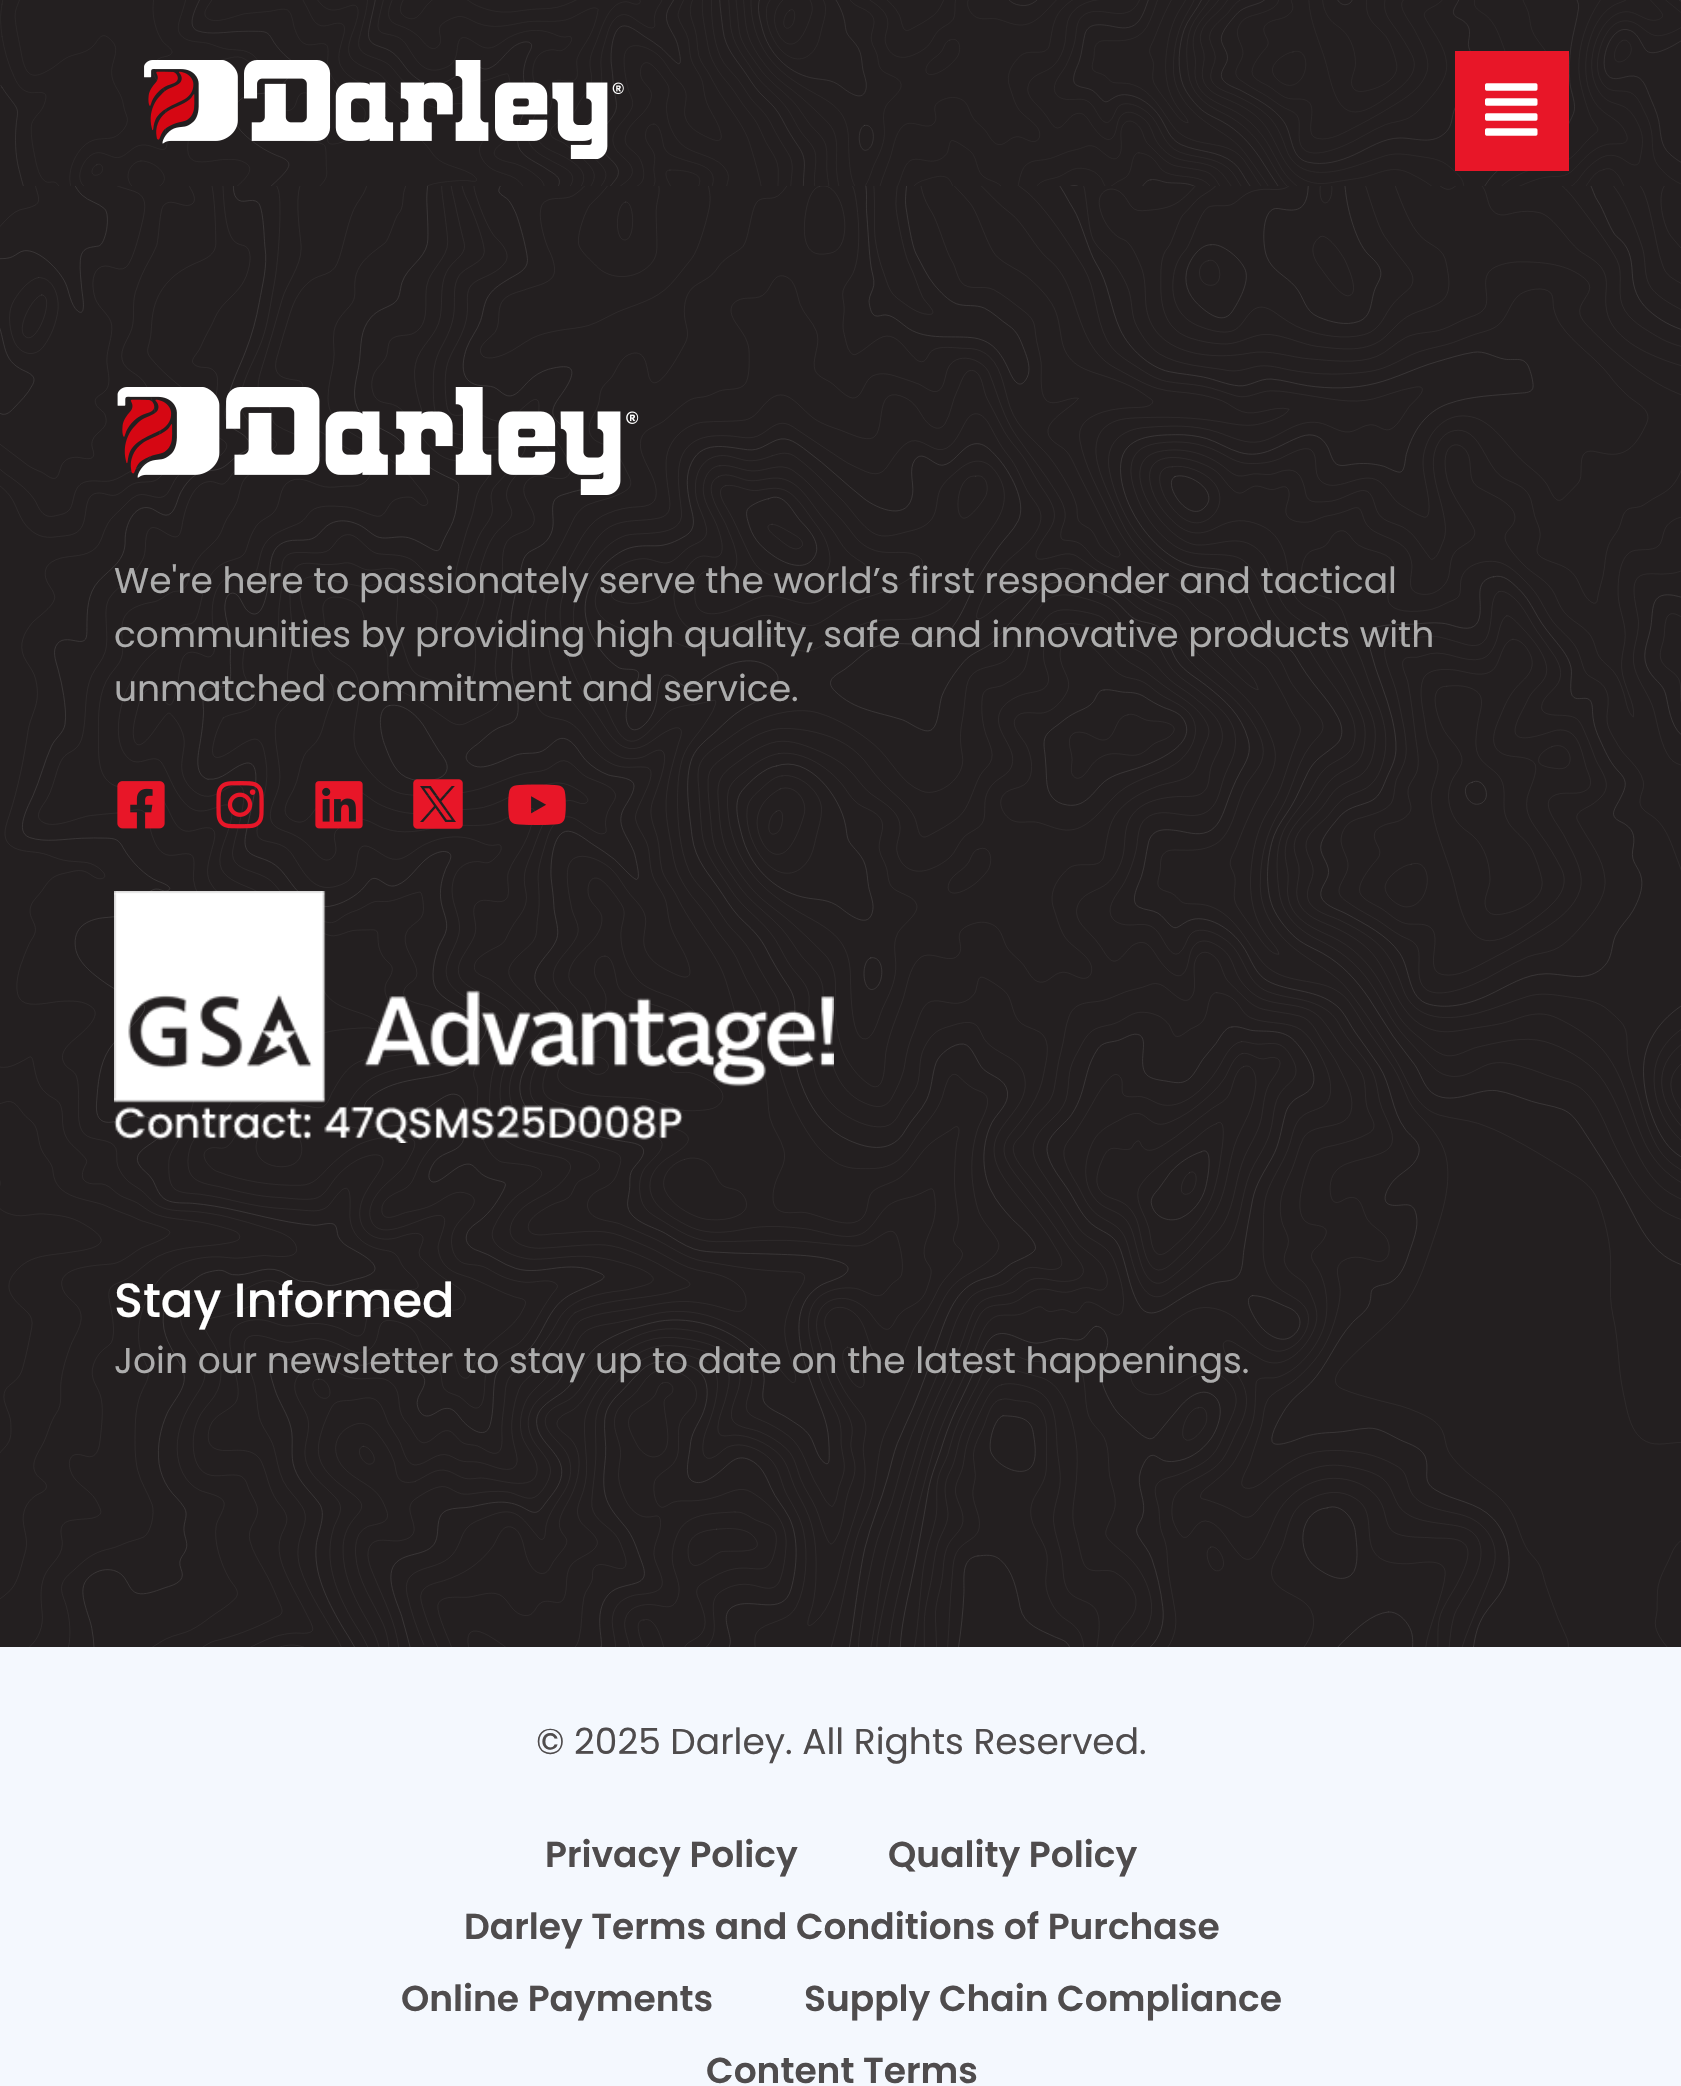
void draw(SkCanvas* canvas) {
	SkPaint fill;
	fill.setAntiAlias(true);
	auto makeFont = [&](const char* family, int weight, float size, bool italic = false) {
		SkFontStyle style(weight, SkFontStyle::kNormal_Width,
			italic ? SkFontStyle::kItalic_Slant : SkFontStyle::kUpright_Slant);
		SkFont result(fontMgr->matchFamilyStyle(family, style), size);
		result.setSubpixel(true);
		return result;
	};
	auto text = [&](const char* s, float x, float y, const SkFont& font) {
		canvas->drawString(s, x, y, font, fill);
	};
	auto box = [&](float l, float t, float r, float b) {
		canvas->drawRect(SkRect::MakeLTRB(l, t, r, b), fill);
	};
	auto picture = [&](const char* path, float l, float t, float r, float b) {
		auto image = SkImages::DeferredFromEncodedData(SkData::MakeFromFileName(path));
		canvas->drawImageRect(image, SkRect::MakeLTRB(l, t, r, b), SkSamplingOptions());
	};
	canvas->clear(0xFF231F20);
	picture("image0.png", 0, 0, 1681, 186);
	picture("image1.png", 144, 60, 624, 159);
	fill.setColor(0xFFE81628);
	box(1455, 51, 1569, 171);
	picture("image2.png", 1485, 83, 1538, 136);
	picture("image3.png", 0, 186, 1681, 1647);
	picture("image4.png", 117, 387, 639, 495);
	picture("image5.png", 117, 781, 165, 829);
	picture("image6.png", 216, 781, 264, 829);
	picture("image7.png", 315, 781, 363, 829);
	picture("image8.png", 413, 779, 463, 829);
	picture("image9.png", 508, 784, 566, 825);
	picture("image10.png", 114, 891, 834, 1143);
	fill.setColor(0xFFF4F8FE);
	box(0, 1647, 1681, 2086);
	auto font1 = makeFont("Poppins", 400, 36);
	fill.setColor(0xFFADADAD);
	text("We're here to passionately serve the world’s first responder and tactical", 114, 593, font1);
	text("communities by providing high quality, safe and innovative products with", 114, 647, font1);
	text("unmatched commitment and service.", 114, 701, font1);
	auto font2 = makeFont("Poppins", 500, 48);
	fill.setColor(0xFFFFFFFF);
	text("Stay Informed", 114, 1317, font2);
	fill.setColor(0xFFADADAD);
	text("Join our newsletter to stay up to date on the latest happenings.", 114, 1373, font1);
	fill.setColor(0xFF4F4C4D);
	text("© 2025 Darley. All Rights Reserved.", 536, 1754, font1);
	auto font3 = makeFont("Poppins", 600, 36);
	text("Privacy Policy", 545, 1867, font3);
	text("Quality Policy", 888, 1867, font3);
	text("Darley Terms and Conditions of Purchase", 464, 1939, font3);
	text("Online Payments", 401, 2011, font3);
	text("Supply Chain Compliance", 804, 2011, font3);
	text("Content Terms", 706, 2083, font3);
}
